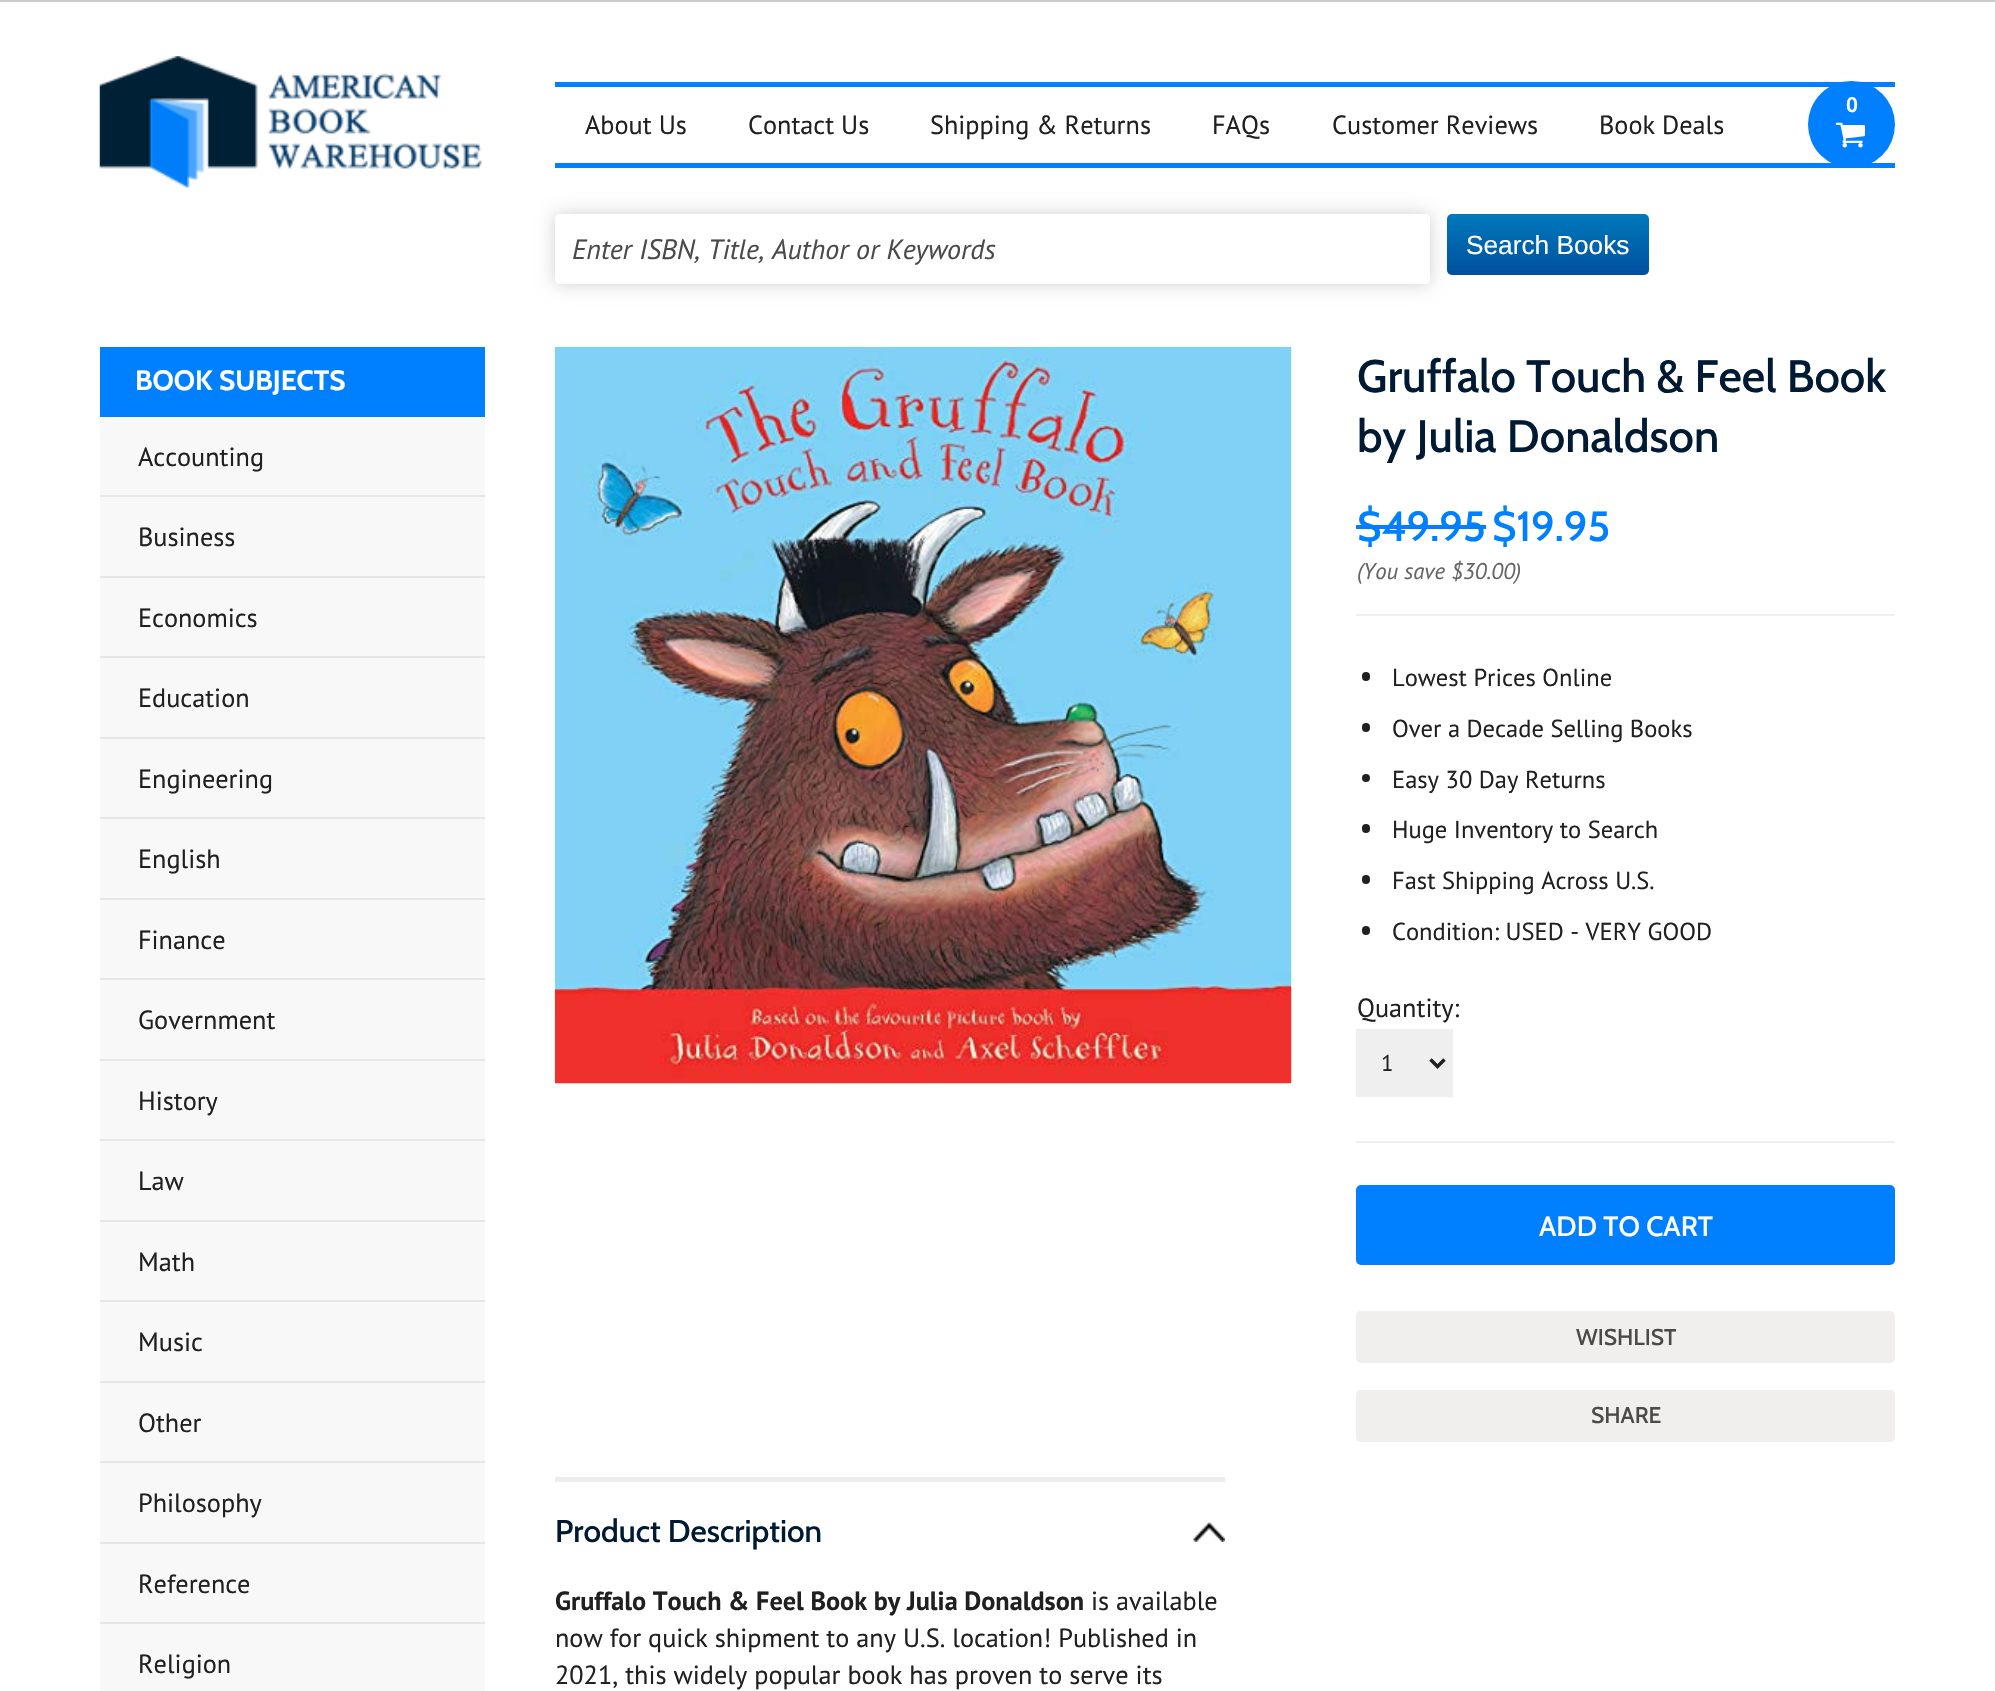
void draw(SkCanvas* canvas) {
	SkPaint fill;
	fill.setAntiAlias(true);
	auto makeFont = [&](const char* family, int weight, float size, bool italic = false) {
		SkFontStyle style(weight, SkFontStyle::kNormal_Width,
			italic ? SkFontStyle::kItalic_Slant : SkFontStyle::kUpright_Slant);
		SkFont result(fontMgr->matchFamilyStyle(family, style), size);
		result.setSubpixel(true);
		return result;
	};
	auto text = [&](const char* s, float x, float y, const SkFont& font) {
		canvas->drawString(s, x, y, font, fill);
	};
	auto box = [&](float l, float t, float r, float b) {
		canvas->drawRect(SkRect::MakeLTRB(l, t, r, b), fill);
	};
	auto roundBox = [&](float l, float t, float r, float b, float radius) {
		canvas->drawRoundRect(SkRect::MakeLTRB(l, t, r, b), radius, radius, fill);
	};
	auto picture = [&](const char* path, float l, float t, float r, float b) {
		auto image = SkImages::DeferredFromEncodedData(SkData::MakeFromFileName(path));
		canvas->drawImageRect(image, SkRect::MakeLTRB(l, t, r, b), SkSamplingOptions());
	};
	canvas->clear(0xFFFFFFFF);
	fill.setColor(0xFFCCCCCC);
	box(0, 0, 1995, 2);
	picture("image0.png", 99, 56, 482, 188);
	fill.setColor(0xFF0080FF);
	box(555, 82, 1895, 87);
	box(555, 163, 1895, 168);
	canvas->drawCircle(1851.5f, 124.5f, 43.5f, fill);
	picture("image1.png", 1835, 122, 1865, 148);
	canvas->save();
	canvas->clipPath(SkPathBuilder(SkPathFillType::kEvenOdd).moveTo(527, 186).lineTo(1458, 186).lineTo(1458, 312).lineTo(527, 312).close().moveTo(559, 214).lineTo(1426, 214).cubicTo(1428, 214, 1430, 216, 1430, 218).lineTo(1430, 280).cubicTo(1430, 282, 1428, 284, 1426, 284).lineTo(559, 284).cubicTo(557, 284, 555, 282, 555, 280).lineTo(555, 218).cubicTo(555, 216, 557, 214, 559, 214).close().detach(), true);
	fill.setColor(0xFFD0D0D0);
	fill.setMaskFilter(SkMaskFilter::MakeBlur(kNormal_SkBlurStyle, 9));
	canvas->drawRoundRect(SkRect::MakeLTRB(555, 214, 1430, 284), 4, 4, fill);
	fill.setMaskFilter(nullptr);
	canvas->restore();
	{
		const SkColor colors[] = {0xFF0079BC, 0xFF00509D};
		const float stops[] = {0, 1};
		const SkPoint ends[] = {{1548, 214}, {1548, 275}};
		fill.setShader(SkGradientShader::MakeLinear(ends, colors, stops, 2, SkTileMode::kClamp));
		fill.setAlpha(255);
	}
	roundBox(1447, 214, 1649, 275, 5);
	fill.setShader(nullptr);
	fill.setColor(0xFFF8F8F8);
	box(100, 417, 485, 1691);
	fill.setColor(0xFF0080FF);
	box(100, 347, 485, 417);
	fill.setColor(0xFFE6E6E6);
	box(100, 495, 485, 497);
	box(100, 576, 485, 578);
	box(100, 656, 485, 658);
	box(100, 737, 485, 739);
	box(100, 817, 485, 819);
	box(100, 898, 485, 900);
	box(100, 978, 485, 980);
	box(100, 1059, 485, 1061);
	box(100, 1139, 485, 1141);
	box(100, 1220, 485, 1222);
	box(100, 1300, 485, 1302);
	box(100, 1381, 485, 1383);
	box(100, 1461, 485, 1463);
	box(100, 1542, 485, 1544);
	box(100, 1622, 485, 1624);
	picture("image2.png", 554, 346, 1292, 1084);
	fill.setColor(0xFFF0EFEE);
	box(1356, 614, 1895, 616);
	fill.setColor(0xFF0080FF);
	box(1356, 525, 1486, 529);
	fill.setColor(0xFF202020);
	roundBox(1362, 672, 1370, 681, 4);
	roundBox(1362, 723, 1370, 732, 4);
	canvas->drawCircle(1366, 778, 4, fill);
	roundBox(1362, 824, 1370, 833, 4);
	roundBox(1362, 875, 1370, 884, 4);
	roundBox(1362, 926, 1370, 935, 4);
	fill.setColor(0xFFEFEFEF);
	box(1356, 1029, 1453, 1097);
	fill.setStyle(SkPaint::kStroke_Style);
	fill.setStrokeWidth(3.5f);
	fill.setColor(0xFF202020);
	canvas->drawPath(SkPathBuilder().moveTo(1430.5f, 1059.5f).lineTo(1437.5f, 1066.5f).lineTo(1444.5f, 1059.5f).detach(), fill);
	fill.setStyle(SkPaint::kFill_Style);
	fill.setColor(0xFFF0EFEE);
	box(1356, 1141, 1895, 1143);
	fill.setColor(0xFF0080FF);
	canvas->drawRoundRect(SkRect::MakeLTRB(1358, 1187, 1893, 1263), 3, 3, fill);
	fill.setStyle(SkPaint::kStroke_Style);
	fill.setStrokeWidth(4);
	canvas->drawRoundRect(SkRect::MakeLTRB(1358, 1187, 1893, 1263), 3, 3, fill);
	fill.setStyle(SkPaint::kFill_Style);
	fill.setColor(0xFFF0EFEE);
	canvas->drawRoundRect(SkRect::MakeLTRB(1358, 1313, 1893, 1361), 3, 3, fill);
	fill.setStyle(SkPaint::kStroke_Style);
	canvas->drawRoundRect(SkRect::MakeLTRB(1358, 1313, 1893, 1361), 3, 3, fill);
	fill.setStyle(SkPaint::kFill_Style);
	roundBox(1356, 1390, 1895, 1442, 5);
	fill.setColor(0xFFEDEDED);
	box(555, 1477, 1225, 1482);
	picture("image3.png", 1193, 1522, 1225, 1542);
	auto font1 = makeFont("PT Sans", 700, 21);
	fill.setColor(0xFFFFFFFF);
	text("0", 1846, 112, font1);
	auto font2 = makeFont("PT Sans", 400, 26.25f);
	fill.setColor(0xFF202020);
	text("About Us", 585, 134, font2);
	text("Contact Us", 748, 134, font2);
	text("Shipping & Returns", 930, 134, font2);
	text("FAQs", 1212, 134, font2);
	text("Customer Reviews", 1332, 134, font2);
	text("Book Deals", 1599, 134, font2);
	auto font3 = makeFont("PT Sans", 400, 28, true);
	fill.setColor(0xFF4A4A4A);
	text("Enter ISBN, Title, Author or Keywords", 572, 259, font3);
	auto font4 = makeFont("Liberation Sans", 400, 26.25f);
	fill.setColor(0xFFFFFFFF);
	text("Search Books", 1466, 254, font4);
	auto font5 = makeFont("Cabin", 700, 28);
	text("BOOK SUBJECTS", 135, 390, font5);
	fill.setColor(0xFF202020);
	text("Accounting", 138, 466, font2);
	text("Business", 138, 546, font2);
	text("Economics", 138, 627, font2);
	text("Education", 138, 707, font2);
	text("Engineering", 138, 788, font2);
	text("English", 138, 868, font2);
	text("Finance", 138, 949, font2);
	text("Government", 138, 1029, font2);
	text("History", 138, 1110, font2);
	text("Law", 138, 1190, font2);
	text("Math", 138, 1271, font2);
	text("Music", 138, 1351, font2);
	text("Other", 138, 1432, font2);
	text("Philosophy", 138, 1512, font2);
	text("Reference", 138, 1593, font2);
	text("Religion", 138, 1673, font2);
	auto font6 = makeFont("Cabin", 500, 45.5f);
	fill.setColor(0xFF001A33);
	text("Gruffalo Touch & Feel Book", 1357, 392, font6);
	text("by Julia Donaldson", 1357, 452, font6);
	auto font7 = makeFont("Cabin", 500, 42);
	fill.setColor(0xFF0080FF);
	text("$49.95", 1357, 541, font7);
	text("$19.95", 1492, 541, font7);
	auto font8 = makeFont("PT Sans", 400, 22.75f, true);
	fill.setColor(0xFF666666);
	text("(You save $30.00)", 1357, 579, font8);
	auto font9 = makeFont("PT Sans", 400, 24.5f);
	fill.setColor(0xFF202020);
	text("Lowest Prices Online", 1392, 686, font9);
	text("Over a Decade Selling Books", 1392, 737, font9);
	text("Easy 30 Day Returns", 1392, 788, font9);
	text("Huge Inventory to Search", 1392, 838, font9);
	text("Fast Shipping Across U.S.", 1392, 889, font9);
	text("Condition: USED - VERY GOOD", 1392, 940, font9);
	text("Quantity:", 1357, 1017, font2);
	auto font10 = makeFont("PT Sans", 400, 22.75f);
	text("1", 1381, 1071, font10);
	auto font11 = makeFont("Cabin", 500, 28);
	fill.setColor(0xFFFFFFFF);
	text("ADD TO CART", 1539, 1236, font11);
	auto font12 = makeFont("Cabin", 500, 22.75f);
	fill.setColor(0xFF4A4A4A);
	text("WISHLIST", 1576, 1345, font12);
	text("SHARE", 1591, 1423, font12);
	auto font13 = makeFont("Cabin", 500, 31.5f);
	fill.setColor(0xFF001A33);
	text("Product Description", 555, 1542, font13);
	auto font14 = makeFont("PT Sans", 700, 26.25f);
	fill.setColor(0xFF202020);
	text("Gruffalo Touch & Feel Book by Julia Donaldson", 555, 1610, font14);
	text("is available", 1091, 1610, font2);
	text("now for quick shipment to any U.S. location! Published in", 555, 1647, font2);
	text("2021, this widely popular book has proven to serve its", 555, 1684, font2);
}
